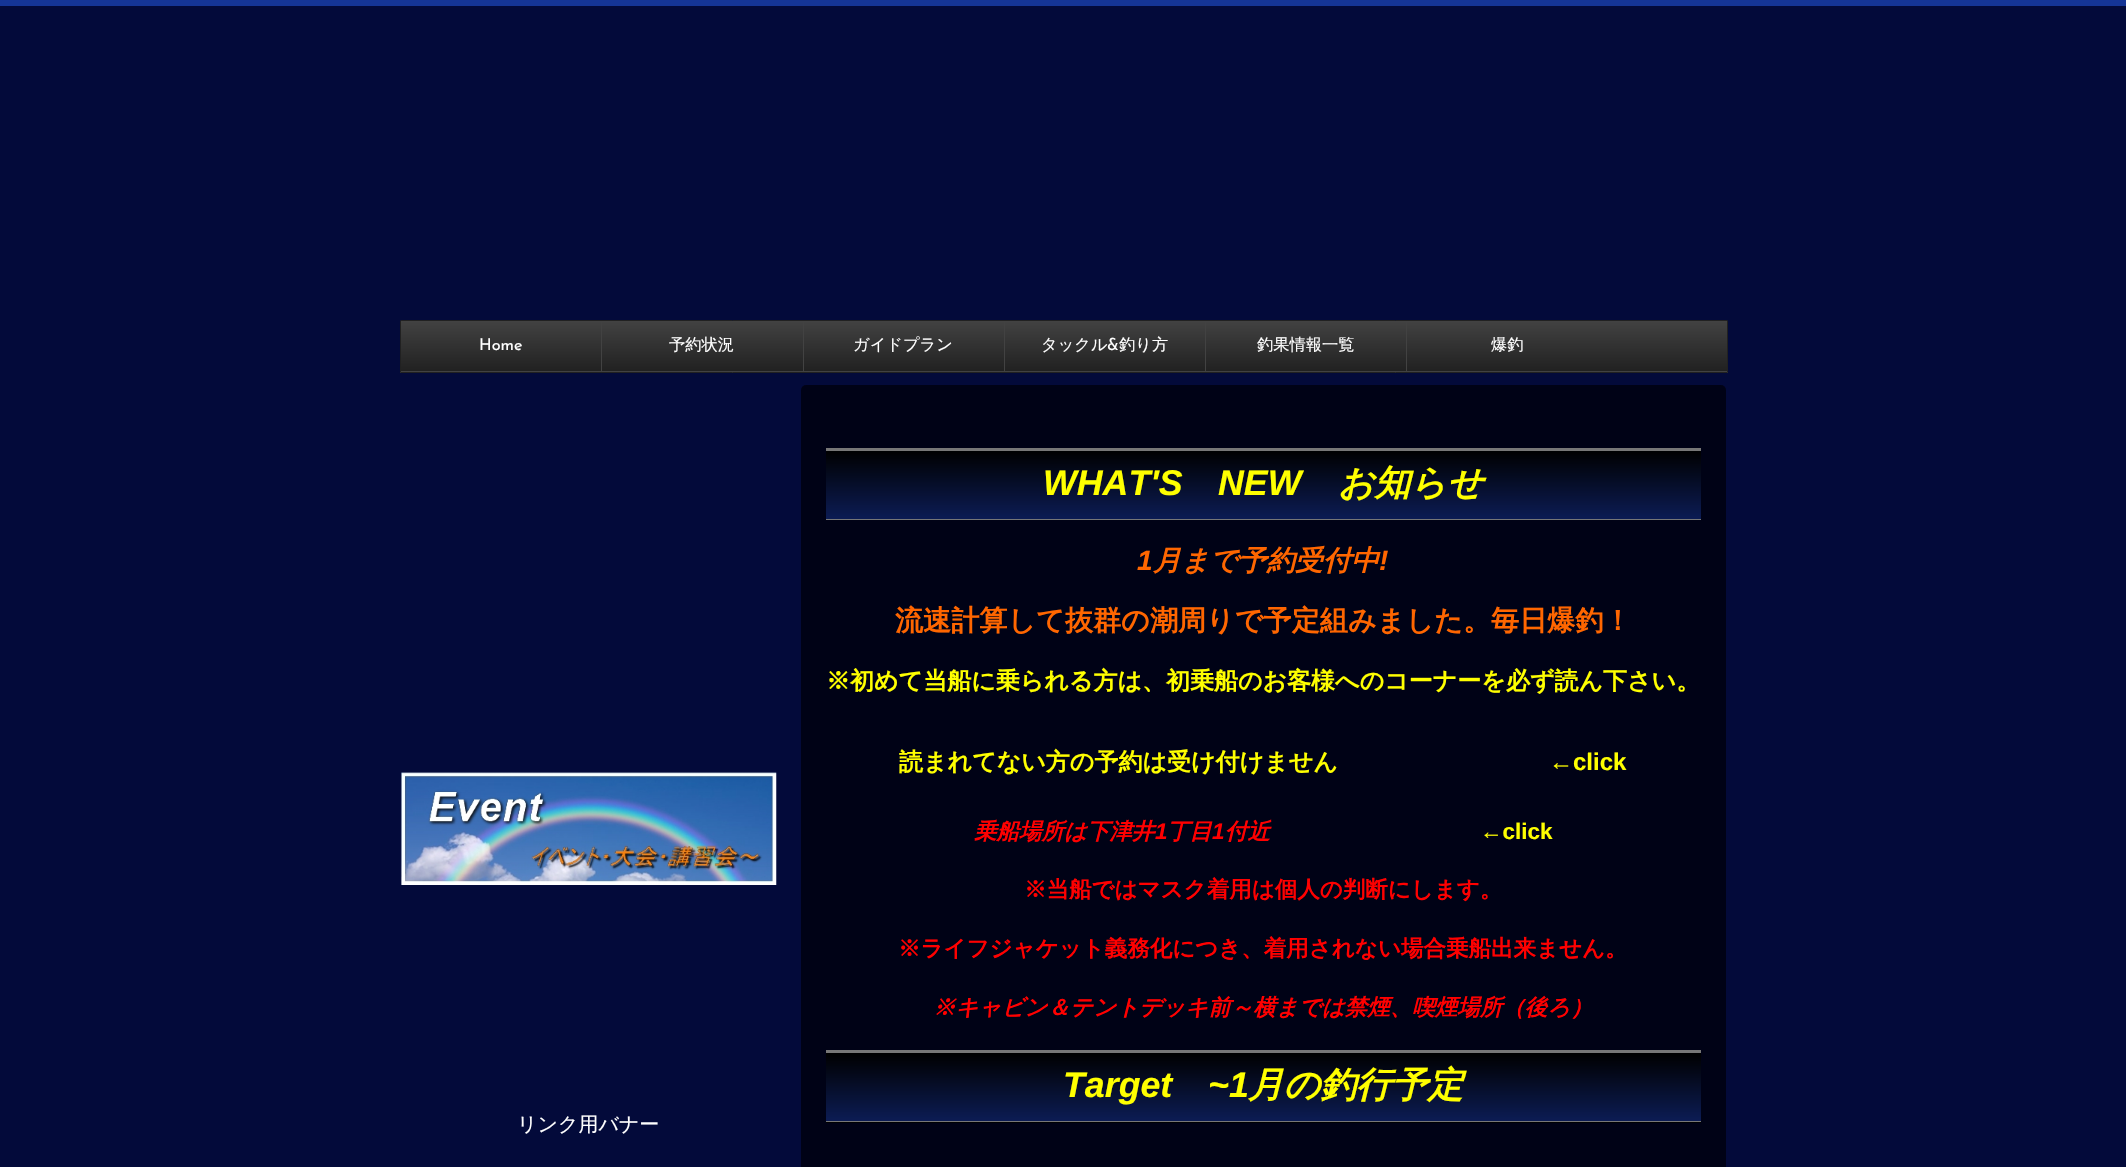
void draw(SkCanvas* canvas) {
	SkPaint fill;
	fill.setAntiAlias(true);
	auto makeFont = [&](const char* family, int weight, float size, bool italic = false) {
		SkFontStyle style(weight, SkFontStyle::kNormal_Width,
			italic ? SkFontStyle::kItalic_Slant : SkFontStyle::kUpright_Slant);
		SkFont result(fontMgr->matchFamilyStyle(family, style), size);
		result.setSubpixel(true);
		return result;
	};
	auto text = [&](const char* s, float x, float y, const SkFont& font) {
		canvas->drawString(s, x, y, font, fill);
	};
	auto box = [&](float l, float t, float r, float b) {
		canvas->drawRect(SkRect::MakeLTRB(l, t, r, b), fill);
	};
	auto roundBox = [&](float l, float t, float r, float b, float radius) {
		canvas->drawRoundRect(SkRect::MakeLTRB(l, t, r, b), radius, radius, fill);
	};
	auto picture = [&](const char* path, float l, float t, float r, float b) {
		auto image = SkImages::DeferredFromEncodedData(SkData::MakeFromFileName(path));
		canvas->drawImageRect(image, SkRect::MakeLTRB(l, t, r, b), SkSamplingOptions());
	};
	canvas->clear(0xFF030A3A);
	fill.setColor(0xFF153596);
	box(0, 0, 2126, 6);
	{
		const SkColor colors[] = {0xFF424242, 0xFF212121};
		const float stops[] = {0, 1};
		const SkPoint ends[] = {{1064, 321}, {1064, 371}};
		fill.setShader(SkGradientShader::MakeLinear(ends, colors, stops, 2, SkTileMode::kClamp));
		fill.setAlpha(255);
	}
	box(401, 321, 1727, 371);
	{
		const SkColor colors[] = {0xFF424242, 0xFF212121};
		const float stops[] = {0, 1};
		const SkPoint ends[] = {{1064, 371}, {1064, 421}};
		fill.setShader(SkGradientShader::MakeLinear(ends, colors, stops, 2, SkTileMode::kClamp));
		fill.setAlpha(255);
	}
	canvas->drawPath(SkPathBuilder().moveTo(400, 371).lineTo(1728, 371).lineTo(1728, 372).cubicTo(1728, 372.5f, 1727.5f, 373, 1727, 373).lineTo(401, 373).cubicTo(400.5f, 373, 400, 372.5f, 400, 372).close().detach(), fill);
	fill.setStyle(SkPaint::kStroke_Style);
	fill.setStrokeWidth(1);
	fill.setShader(nullptr);
	fill.setColor(0xFF212121);
	canvas->drawRoundRect(SkRect::MakeLTRB(400.5f, 320.5f, 1727.5f, 372.5f), 0.5f, 0.5f, fill);
	fill.setStyle(SkPaint::kFill_Style);
	fill.setColor(0xFF424242);
	box(601, 321, 602, 371);
	box(803, 321, 804, 371);
	box(1004, 321, 1005, 371);
	box(1205, 321, 1206, 371);
	box(1406, 321, 1407, 371);
	fill.setColor(0xFF000216);
	roundBox(801, 385, 1726, 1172, 5);
	{
		const SkColor colors[] = {0xFF000000, 0xFF0C1C54};
		const float stops[] = {0, 1};
		const SkPoint ends[] = {{1264, 450}, {1264, 519}};
		fill.setShader(SkGradientShader::MakeLinear(ends, colors, stops, 2, SkTileMode::kClamp));
		fill.setAlpha(255);
	}
	box(826, 451, 1701, 519);
	fill.setShader(nullptr);
	fill.setColor(0xFF777777);
	box(826, 448, 1701, 451);
	box(826, 519, 1701, 520);
	{
		const SkColor colors[] = {0xFF000000, 0xFF0C1C54};
		const float stops[] = {0, 1};
		const SkPoint ends[] = {{1264, 1053}, {1264, 1121}};
		fill.setShader(SkGradientShader::MakeLinear(ends, colors, stops, 2, SkTileMode::kClamp));
		fill.setAlpha(255);
	}
	box(826, 1053, 1701, 1121);
	{
		const SkColor colors[] = {0xFF000000, 0xFF0C1C54};
		const float stops[] = {0, 1};
		const SkPoint ends[] = {{1264, 1121}, {1264, 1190}};
		fill.setShader(SkGradientShader::MakeLinear(ends, colors, stops, 2, SkTileMode::kClamp));
		fill.setAlpha(255);
	}
	box(826, 1122, 1701, 1123);
	fill.setShader(nullptr);
	fill.setColor(0xFF777777);
	box(826, 1050, 1701, 1053);
	box(826, 1121, 1701, 1122);
	picture("image0.png", 401, 772, 777, 885);
	auto font1 = makeFont("Josefin Sans", 400, 16.25f);
	fill.setColor(0xFFFFFFFF);
	text("Home", 479, 350, font1);
	auto font2 = makeFont("WenQuanYi Zen Hei", 500, 16.25f);
	text("予約状況", 669, 350, font2);
	text("ガイドプラン", 853, 350, font2);
	text("タックル", 1041, 350, font2);
	text("&", 1107, 350, font1);
	text("釣り方", 1119, 350, font2);
	text("釣果情報一覧", 1257, 350, font2);
	text("爆釣", 1491, 350, font2);
	auto font3 = makeFont("Liberation Sans", 700, 35.75f, true);
	fill.setColor(0xFFFFFF00);
	text("WHAT'S", 1043, 495, font3);
	text("NEW", 1218, 495, font3);
	auto font4 = makeFont("WenQuanYi Zen Hei", 700, 35.75f, true);
	text("お知らせ", 1338, 495, font4);
	auto font5 = makeFont("Liberation Sans", 700, 28.1f, true);
	fill.setColor(0xFFFF6600);
	text("1", 1137, 570, font5);
	auto font6 = makeFont("WenQuanYi Zen Hei", 700, 28.1f, true);
	text("月まで予約受付中", 1153, 570, font6);
	text("!", 1379, 570, font5);
	auto font7 = makeFont("WenQuanYi Zen Hei", 700, 28.1f);
	text("流速計算して抜群の潮周りで予定組みました。毎日爆釣！", 895, 630, font7);
	auto font8 = makeFont("WenQuanYi Zen Hei", 700, 24);
	fill.setColor(0xFFFFFF00);
	text("※初めて当船に乗られる方は、初乗船のお客様へのコーナーを必ず読ん下さい。", 826, 689, font8);
	text("読まれてない方の予約は受け付けません", 899, 770, font8);
	auto font9 = makeFont("Liberation Sans", 700, 24);
	text("←click", 1549, 770, font9);
	auto font10 = makeFont("WenQuanYi Zen Hei", 700, 22.5f, true);
	fill.setColor(0xFFFF0000);
	text("乗船場所は下津井", 974, 839, font10);
	auto font11 = makeFont("Liberation Sans", 700, 22.5f, true);
	text("1", 1155, 839, font11);
	text("丁目", 1167, 839, font10);
	text("1", 1212, 839, font11);
	text("付近", 1225, 839, font10);
	auto font12 = makeFont("Liberation Sans", 700, 22.5f);
	fill.setColor(0xFFFFFF00);
	text("←click", 1480, 839, font12);
	auto font13 = makeFont("WenQuanYi Zen Hei", 700, 22.5f);
	fill.setColor(0xFFFF0000);
	text("※当船ではマスク着用は個人の判断にします。", 1024, 897, font13);
	text("※ライフジャケット義務化につき、着用されない場合乗船出来ません。", 898, 956, font13);
	text("※キャビン＆テントデッキ前～横までは禁煙、喫煙場所（後ろ）", 933, 1015, font10);
	fill.setColor(0xFFFFFF00);
	text("Target", 1063, 1097, font3);
	text("~1", 1208, 1097, font3);
	text("月の釣行予定", 1248, 1097, font4);
	auto font14 = makeFont("WenQuanYi Zen Hei", 500, 20);
	fill.setColor(0xFFFFFFFF);
	text("リンク用バナー", 517, 1131, font14);
}
